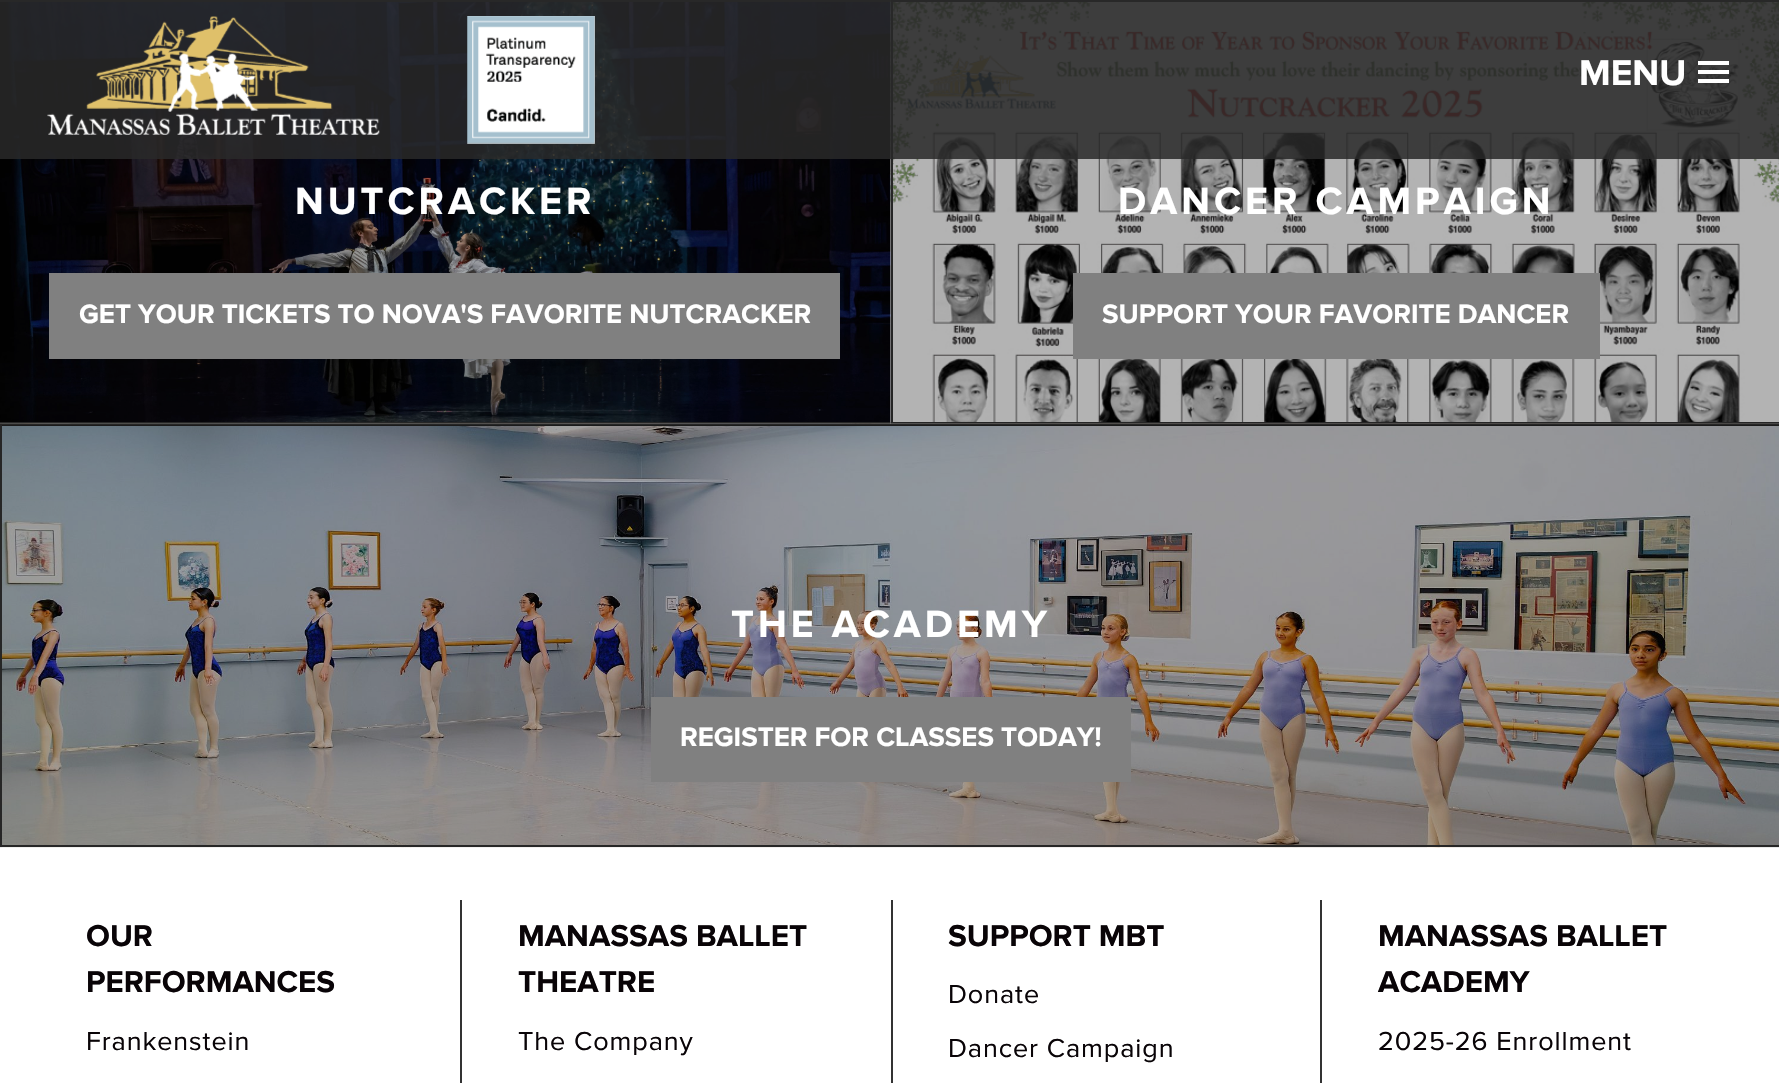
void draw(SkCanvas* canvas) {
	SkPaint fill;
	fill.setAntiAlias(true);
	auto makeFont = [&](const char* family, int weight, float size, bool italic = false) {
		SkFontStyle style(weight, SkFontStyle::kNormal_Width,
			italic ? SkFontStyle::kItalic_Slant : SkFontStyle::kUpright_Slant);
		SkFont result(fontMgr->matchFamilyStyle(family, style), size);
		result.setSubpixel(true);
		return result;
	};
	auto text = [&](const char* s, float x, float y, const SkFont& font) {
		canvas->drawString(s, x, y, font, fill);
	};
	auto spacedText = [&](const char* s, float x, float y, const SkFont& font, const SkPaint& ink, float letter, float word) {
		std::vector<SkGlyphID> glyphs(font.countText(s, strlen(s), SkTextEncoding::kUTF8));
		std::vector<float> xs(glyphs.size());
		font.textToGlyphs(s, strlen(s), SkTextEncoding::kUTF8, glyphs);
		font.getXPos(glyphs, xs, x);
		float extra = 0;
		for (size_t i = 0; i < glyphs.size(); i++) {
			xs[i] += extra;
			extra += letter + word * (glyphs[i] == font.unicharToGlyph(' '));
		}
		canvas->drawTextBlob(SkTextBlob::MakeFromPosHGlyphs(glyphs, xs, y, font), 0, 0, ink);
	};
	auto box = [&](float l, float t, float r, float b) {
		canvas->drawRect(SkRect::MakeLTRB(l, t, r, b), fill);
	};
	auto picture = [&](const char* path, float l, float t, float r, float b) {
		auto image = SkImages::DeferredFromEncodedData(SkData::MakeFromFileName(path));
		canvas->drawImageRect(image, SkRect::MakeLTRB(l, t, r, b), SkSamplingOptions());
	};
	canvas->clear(0xFFFFFFFF);
	picture("image2.png", 0, 2, 891, 422);
	fill.setColor(0xFF262626);
	box(0, 0, 891, 2);
	box(0, 422, 891, 424);
	picture("image3.png", 890, 0, 1779, 424);
	box(891, 0, 1779, 2);
	box(891, 422, 1779, 424);
	box(891, 0, 893, 424);
	fill.setColor(0xD9282828);
	box(0, 0, 1779, 159);
	picture("image0.png", 47, 16, 380, 135);
	picture("image1.png", 467, 16, 595, 144);
	fill.setColor(0xFFFFFFFF);
	box(1698, 61, 1729, 65);
	box(1698, 79, 1729, 83);
	box(1698, 70, 1729, 74);
	fill.setColor(0xFF808080);
	box(49, 273, 840, 359);
	box(1073, 273, 1600, 359);
	picture("image4.png", 0, 423, 1779, 848);
	fill.setColor(0xFF262626);
	box(0, 424, 1779, 425);
	fill.setColor(0xFF1B1B1B);
	box(2, 425, 1779, 426);
	fill.setColor(0xFF262626);
	box(0, 845, 1779, 847);
	box(0, 424, 2, 847);
	fill.setColor(0xFF808080);
	box(651, 697, 1131, 782);
	fill.setColor(0xFF333333);
	box(460, 900, 462, 1083);
	box(891, 900, 893, 1083);
	box(1320, 900, 1322, 1083);
	auto font1 = makeFont("Proxima Nova", 700, 37);
	fill.setColor(0xFFFFFFFF);
	text("MENU", 1579, 85, font1);
	auto font2 = makeFont("Proxima Nova", 700, 39.4f);
	spacedText("NUTCRACKER", 295, 214, font2, fill, 4, 0);
	auto font3 = makeFont("Proxima Nova", 700, 27.55f);
	text("GET YOUR TICKETS TO NOVA'S FAVORITE NUTCRACKER", 79, 323, font3);
	spacedText("DANCER CAMPAIGN", 1118, 214, font2, fill, 4, 0);
	text("SUPPORT YOUR FAVORITE DANCER", 1102, 323, font3);
	spacedText("THE ACADEMY", 731, 637, font2, fill, 4, 0);
	text("REGISTER FOR CLASSES TODAY!", 680, 746, font3);
	auto font4 = makeFont("Proxima Nova", 700, 31.25f);
	fill.setColor(0xFF090407);
	text("OUR", 86, 946, font4);
	text("PERFORMANCES", 86, 992, font4);
	auto font5 = makeFont("Proxima Nova", 400, 27);
	spacedText("Frankenstein", 86, 1050, font5, fill, 0.9f, 0);
	text("MANASSAS BALLET", 518, 946, font4);
	text("THEATRE", 518, 992, font4);
	spacedText("The Company", 518, 1050, font5, fill, 0.9f, 0);
	text("SUPPORT MBT", 948, 946, font4);
	spacedText("Donate", 948, 1003, font5, fill, 0.9f, 0);
	spacedText("Dancer Campaign", 948, 1057, font5, fill, 0.9f, 0);
	text("MANASSAS BALLET", 1378, 946, font4);
	text("ACADEMY", 1378, 992, font4);
	spacedText("2025-26 Enrollment", 1378, 1050, font5, fill, 0.9f, 0);
}
